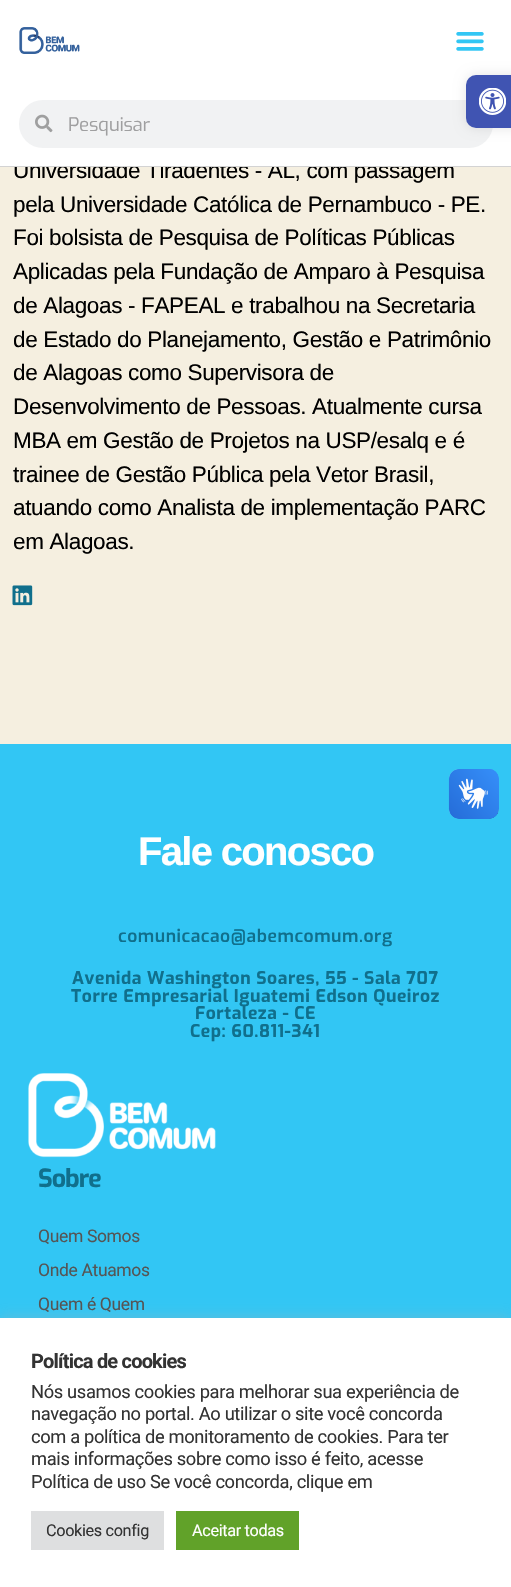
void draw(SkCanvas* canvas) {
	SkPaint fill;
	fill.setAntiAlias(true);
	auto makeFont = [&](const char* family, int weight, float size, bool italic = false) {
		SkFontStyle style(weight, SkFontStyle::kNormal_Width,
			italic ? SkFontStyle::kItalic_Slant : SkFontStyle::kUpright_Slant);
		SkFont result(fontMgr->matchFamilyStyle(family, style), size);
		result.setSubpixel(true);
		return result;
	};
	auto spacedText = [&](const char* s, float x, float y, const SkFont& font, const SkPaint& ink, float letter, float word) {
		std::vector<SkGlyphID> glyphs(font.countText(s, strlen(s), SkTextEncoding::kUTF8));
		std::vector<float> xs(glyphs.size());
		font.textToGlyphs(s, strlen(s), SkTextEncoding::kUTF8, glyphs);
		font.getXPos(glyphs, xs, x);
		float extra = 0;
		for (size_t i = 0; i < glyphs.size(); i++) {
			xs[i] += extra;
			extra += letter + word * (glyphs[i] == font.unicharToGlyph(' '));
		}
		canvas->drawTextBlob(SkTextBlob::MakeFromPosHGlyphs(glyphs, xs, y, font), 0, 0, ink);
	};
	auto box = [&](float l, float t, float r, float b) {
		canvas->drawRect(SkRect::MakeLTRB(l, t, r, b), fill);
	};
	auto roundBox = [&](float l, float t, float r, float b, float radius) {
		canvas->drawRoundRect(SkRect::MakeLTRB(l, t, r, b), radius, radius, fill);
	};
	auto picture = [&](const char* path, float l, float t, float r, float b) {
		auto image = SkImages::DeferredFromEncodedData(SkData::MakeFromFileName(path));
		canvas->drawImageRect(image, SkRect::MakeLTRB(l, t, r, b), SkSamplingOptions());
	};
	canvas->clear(0xFFF5EFE0);
	picture("image4.png", 12, 585, 33, 606);
	fill.setColor(0xFF32C6F4);
	box(0, 744, 511, 1318);
	picture("image5.png", 448, 769, 499, 819);
	picture("image6.png", 449, 769, 499, 819);
	picture("image7.png", 28, 1073, 216, 1158);
	fill.setColor(0x4DACABAB);
	fill.setMaskFilter(SkMaskFilter::MakeBlur(kNormal_SkBlurStyle, 6));
	canvas->drawRect(SkRect::MakeLTRB(0, 1316, 511, 1586), fill);
	fill.setMaskFilter(nullptr);
	fill.setColor(0xFFFFFFFF);
	box(0, 1318, 511, 1587);
	fill.setColor(0xFFDEDFE0);
	box(31, 1511, 164, 1550);
	fill.setColor(0xFF61A229);
	box(176, 1511, 299, 1550);
	auto font1 = makeFont("Liberation Sans", 400, 22.5f);
	fill.setColor(0xFF000000);
	spacedText("Universidade Tiradentes - AL, com passagem", 13, 178, font1, fill, -0.35f, 0);
	fill.setColor(0xFFFFFFFF);
	box(0, 0, 511, 166);
	fill.setColor(0xFFF1F2F3);
	roundBox(19, 100, 493, 148, 24);
	fill.setColor(0x1A000000);
	fill.setMaskFilter(SkMaskFilter::MakeBlur(kNormal_SkBlurStyle, 6));
	canvas->drawRoundRect(SkRect::MakeLTRB(466, 75, 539, 128), 10, 10, fill);
	fill.setMaskFilter(nullptr);
	fill.setColor(0xFF4054B2);
	roundBox(466, 75, 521, 128, 10);
	picture("image0.png", 479, 88, 506, 115);
	picture("image3.png", 35, 114, 53, 133);
	auto font2 = makeFont("Exo", 400, 18.75f);
	fill.setColor(0xFF9F9FA0);
	spacedText("Pesquisar", 68, 131, font2, fill, -0.25f, 0);
	picture("image2.png", 456, 32, 484, 51);
	picture("image1.png", 19, 27, 80, 54);
	fill.setColor(0xFFD3D3D3);
	box(0, 166, 511, 167);
	fill.setColor(0xFF000000);
	spacedText("pela Universidade Católica de Pernambuco - PE.", 13, 212, font1, fill, -0.35f, 0);
	spacedText("Foi bolsista de Pesquisa de Políticas Públicas", 13, 245, font1, fill, -0.35f, 0);
	spacedText("Aplicadas pela Fundação de Amparo à Pesquisa", 13, 279, font1, fill, -0.35f, 0);
	spacedText("de Alagoas - FAPEAL e trabalhou na Secretaria", 13, 313, font1, fill, -0.35f, 0);
	spacedText("de Estado do Planejamento, Gestão e Patrimônio", 13, 347, font1, fill, -0.35f, 0);
	spacedText("de Alagoas como Supervisora de", 13, 380, font1, fill, -0.35f, 0);
	spacedText("Desenvolvimento de Pessoas. Atualmente cursa", 13, 414, font1, fill, -0.35f, 0);
	spacedText("MBA em Gestão de Projetos na USP/esalq e é", 13, 448, font1, fill, -0.35f, 0);
	spacedText("trainee de Gestão Pública pela Vetor Brasil,", 13, 482, font1, fill, -0.35f, 0);
	spacedText("atuando como Analista de implementação PARC", 13, 515, font1, fill, -0.35f, 0);
	spacedText("em Alagoas.", 13, 549, font1, fill, -0.35f, 0);
	auto font3 = makeFont("Liberation Sans", 700, 40);
	fill.setColor(0xFFFFFFFF);
	spacedText("Fale conosco", 138, 865, font3, fill, -1.7f, 0);
	auto font4 = makeFont("Exo", 600, 17.5f);
	fill.setColor(0xFF106F8C);
	spacedText("comunicacao@abemcomum.org", 118, 942, font4, fill, 0.55f, 0);
	auto font5 = makeFont("Exo", 700, 17.5f);
	spacedText("Avenida Washington Soares, 55 - Sala 707", 72, 984, font5, fill, 0.55f, 0);
	spacedText("Torre Empresarial Iguatemi Edson Queiroz", 71, 1002, font5, fill, 0.55f, 0);
	spacedText("Fortaleza - CE", 195, 1019, font5, fill, 0.55f, 0);
	spacedText("Cep: 60.811-341", 190, 1037, font5, fill, 0.55f, 0);
	auto font6 = makeFont("Exo", 700, 25);
	spacedText("Sobre", 38, 1187, font6, fill, -1, 0);
	auto font7 = makeFont("Roboto", 400, 17.5f);
	fill.setColor(0xFF555555);
	spacedText("Quem Somos", 38, 1242, font7, fill, -0.35f, 0);
	spacedText("Onde Atuamos", 38, 1276, font7, fill, -0.35f, 0);
	spacedText("Quem é Quem", 38, 1310, font7, fill, -0.35f, 0);
	auto font8 = makeFont("Roboto", 700, 20);
	fill.setColor(0xFF333333);
	spacedText("Política de cookies", 31, 1368, font8, fill, -0.8f, 0);
	auto font9 = makeFont("Roboto", 400, 18.3f);
	spacedText("Nós usamos cookies para melhorar sua experiência de", 31, 1398, font9, fill, -0.35f, 0);
	spacedText("navegação no portal. Ao utilizar o site você concorda", 31, 1420, font9, fill, -0.35f, 0);
	spacedText("com a política de monitoramento de cookies. Para ter", 31, 1443, font9, fill, -0.35f, 0);
	spacedText("mais informações sobre como isso é feito, acesse", 31, 1465, font9, fill, -0.35f, 0);
	spacedText("Política de uso Se você concorda, clique em", 31, 1488, font9, fill, -0.35f, 0);
	auto font10 = makeFont("Roboto", 400, 16.25f);
	spacedText("Cookies config", 46, 1536, font10, fill, -0.35f, 0);
	fill.setColor(0xFFFFFFFF);
	spacedText("Aceitar todas", 192, 1536, font10, fill, -0.35f, 0);
}
